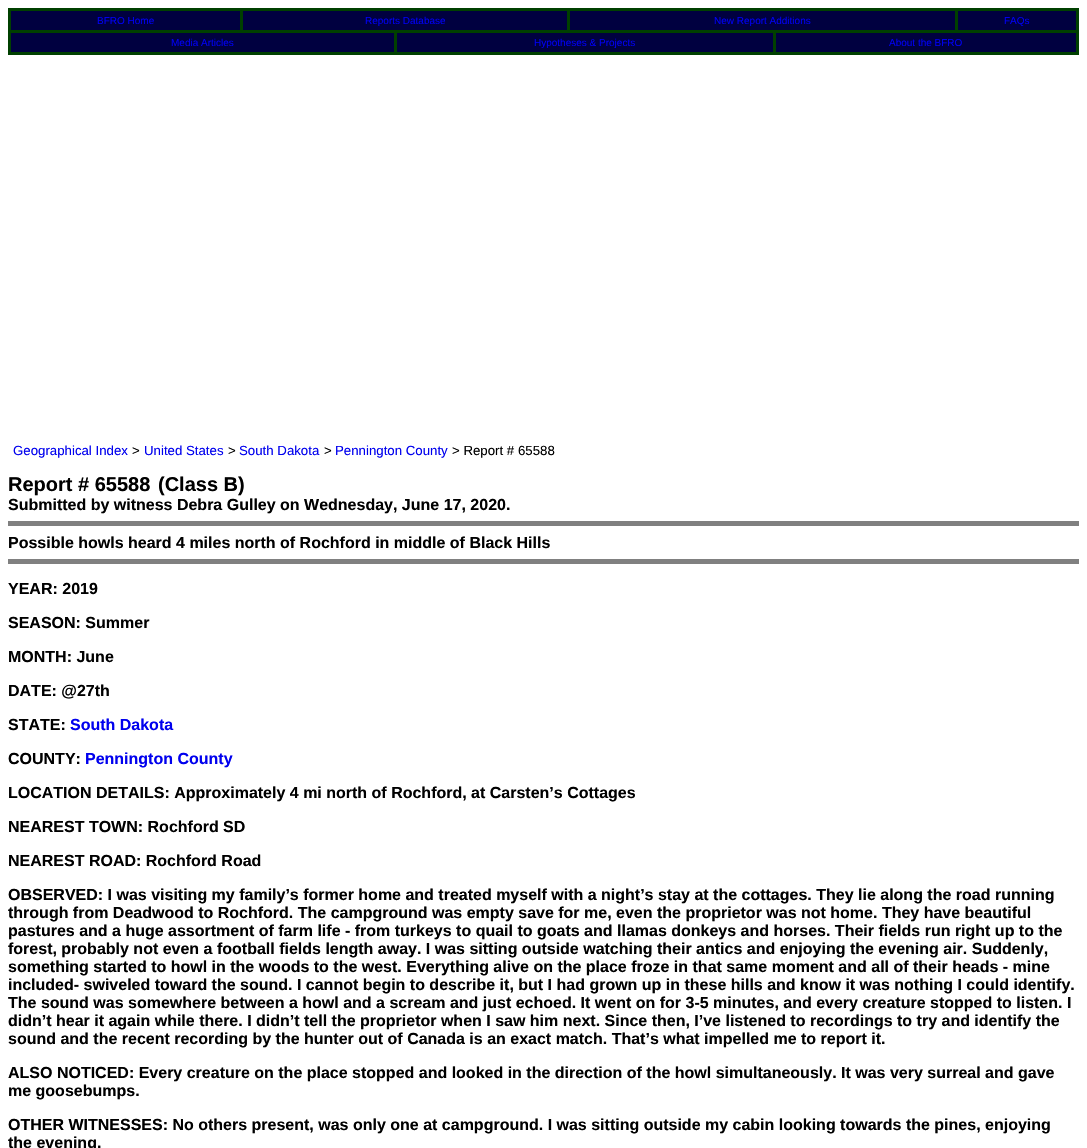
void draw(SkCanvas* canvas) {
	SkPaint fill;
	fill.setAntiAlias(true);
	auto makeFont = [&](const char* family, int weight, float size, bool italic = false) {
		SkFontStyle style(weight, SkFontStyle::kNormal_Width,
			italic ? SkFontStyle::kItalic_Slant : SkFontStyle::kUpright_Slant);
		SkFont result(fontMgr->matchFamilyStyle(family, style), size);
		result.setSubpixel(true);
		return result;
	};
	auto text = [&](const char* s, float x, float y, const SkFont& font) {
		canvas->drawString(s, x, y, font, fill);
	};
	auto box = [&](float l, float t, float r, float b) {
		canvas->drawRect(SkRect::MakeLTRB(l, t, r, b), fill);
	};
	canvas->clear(0xFFFFFFFF);
	fill.setColor(0xFF004000);
	box(8, 8, 1079, 55);
	fill.setColor(0xFF000040);
	box(11, 11, 240, 30);
	box(243, 11, 567, 30);
	box(570, 11, 955, 30);
	box(958, 11, 1076, 30);
	box(11, 33, 394, 52);
	box(397, 33, 773, 52);
	box(776, 33, 1076, 52);
	fill.setColor(0xFF808080);
	box(8, 521, 1079, 526);
	box(8, 559, 1079, 564);
	auto font1 = makeFont("Liberation Sans", 400, 10);
	fill.setColor(0xFF0000EE);
	text("BFRO Home", 97, 24, font1);
	text("Reports Database", 365, 24, font1);
	text("New Report Additions", 714, 24, font1);
	text("FAQs", 1004, 24, font1);
	text("Media Articles", 171, 46, font1);
	text("Hypotheses & Projects", 534, 46, font1);
	text("About the BFRO", 889, 46, font1);
	auto font2 = makeFont("Liberation Sans", 400, 13.25f);
	text("Geographical Index", 13, 455, font2);
	fill.setColor(0xFF000000);
	text(">", 132, 455, font2);
	fill.setColor(0xFF0000EE);
	text("United States", 144, 455, font2);
	fill.setColor(0xFF000000);
	text(">", 228, 455, font2);
	fill.setColor(0xFF0000EE);
	text("South Dakota", 239, 455, font2);
	fill.setColor(0xFF000000);
	text(">", 324, 455, font2);
	fill.setColor(0xFF0000EE);
	text("Pennington County", 335, 455, font2);
	fill.setColor(0xFF000000);
	text("> Report # 65588", 452, 455, font2);
	auto font3 = makeFont("Liberation Sans", 700, 20);
	text("Report # 65588", 8, 491, font3);
	text("(Class B)", 158, 491, font3);
	auto font4 = makeFont("Liberation Sans", 700, 16);
	text("Submitted by witness Debra Gulley on Wednesday, June 17, 2020.", 8, 510, font4);
	text("Possible howls heard 4 miles north of Rochford in middle of Black Hills", 8, 548, font4);
	text("YEAR: 2019", 8, 594, font4);
	text("SEASON: Summer", 8, 628, font4);
	text("MONTH: June", 8, 662, font4);
	text("DATE: @27th", 8, 696, font4);
	text("STATE:", 8, 730, font4);
	fill.setColor(0xFF0000EE);
	text("South Dakota", 70, 730, font4);
	fill.setColor(0xFF000000);
	text("COUNTY:", 8, 764, font4);
	fill.setColor(0xFF0000EE);
	text("Pennington County", 85, 764, font4);
	fill.setColor(0xFF000000);
	text("LOCATION DETAILS: Approximately 4 mi north of Rochford, at Carsten’s Cottages", 8, 798, font4);
	text("NEAREST TOWN: Rochford SD", 8, 832, font4);
	text("NEAREST ROAD: Rochford Road", 8, 866, font4);
	text("OBSERVED: I was visiting my family’s former home and treated myself with a night’s stay at the cottages. They lie along the road running", 8, 900, font4);
	text("through from Deadwood to Rochford. The campground was empty save for me, even the proprietor was not home. They have beautiful", 8, 918, font4);
	text("pastures and a huge assortment of farm life - from turkeys to quail to goats and llamas donkeys and horses. Their fields run right up to the", 8, 936, font4);
	text("forest, probably not even a football fields length away. I was sitting outside watching their antics and enjoying the evening air. Suddenly,", 8, 954, font4);
	text("something started to howl in the woods to the west. Everything alive on the place froze in that same moment and all of their heads - mine", 8, 972, font4);
	text("included- swiveled toward the sound. I cannot begin to describe it, but I had grown up in these hills and know it was nothing I could identify.", 8, 990, font4);
	text("The sound was somewhere between a howl and a scream and just echoed. It went on for 3-5 minutes, and every creature stopped to listen. I", 8, 1008, font4);
	text("didn’t hear it again while there. I didn’t tell the proprietor when I saw him next. Since then, I’ve listened to recordings to try and identify the", 8, 1026, font4);
	text("sound and the recent recording by the hunter out of Canada is an exact match. That’s what impelled me to report it.", 8, 1044, font4);
	text("ALSO NOTICED: Every creature on the place stopped and looked in the direction of the howl simultaneously. It was very surreal and gave", 8, 1078, font4);
	text("me goosebumps.", 8, 1096, font4);
	text("OTHER WITNESSES: No others present, was only one at campground. I was sitting outside my cabin looking towards the pines, enjoying", 8, 1130, font4);
	text("the evening.", 8, 1148, font4);
}
